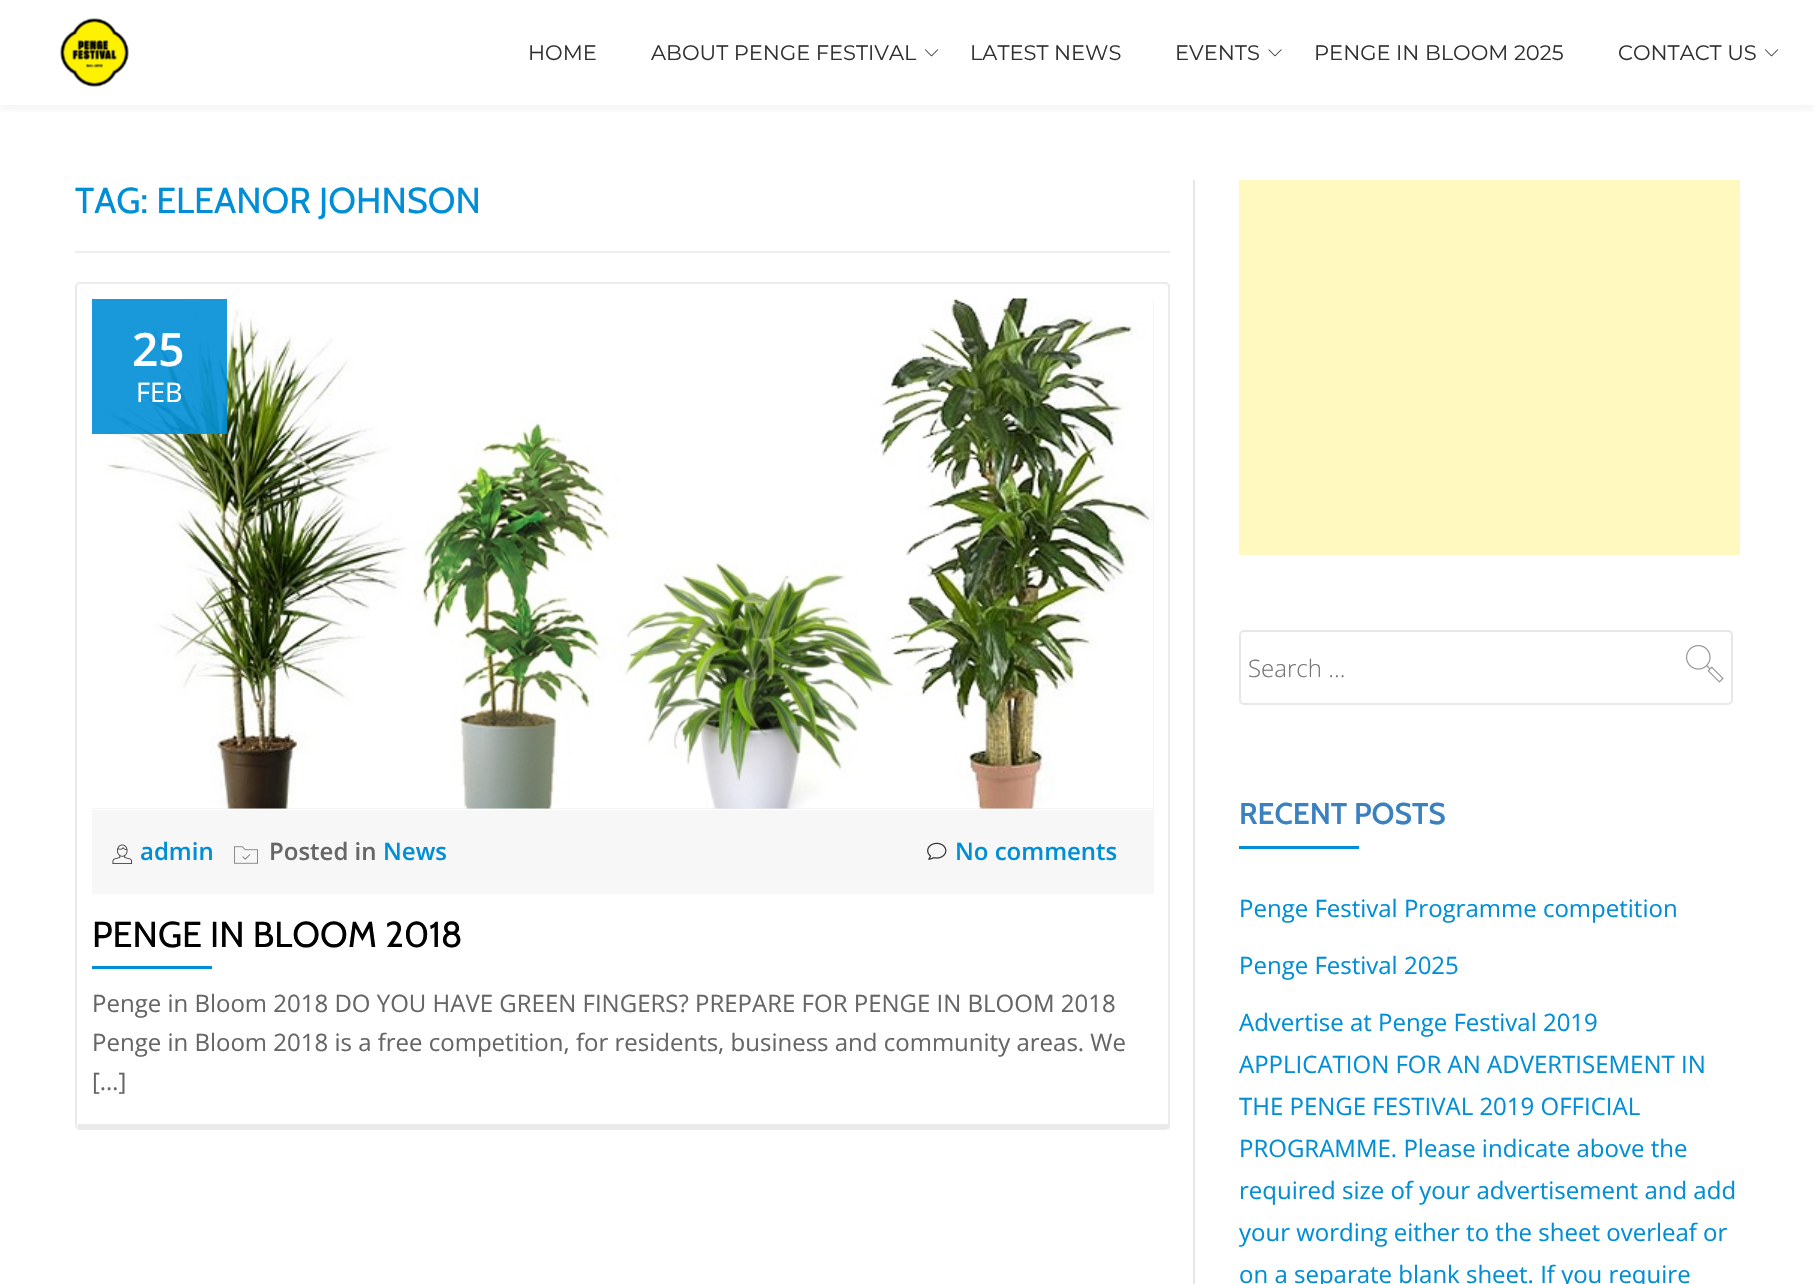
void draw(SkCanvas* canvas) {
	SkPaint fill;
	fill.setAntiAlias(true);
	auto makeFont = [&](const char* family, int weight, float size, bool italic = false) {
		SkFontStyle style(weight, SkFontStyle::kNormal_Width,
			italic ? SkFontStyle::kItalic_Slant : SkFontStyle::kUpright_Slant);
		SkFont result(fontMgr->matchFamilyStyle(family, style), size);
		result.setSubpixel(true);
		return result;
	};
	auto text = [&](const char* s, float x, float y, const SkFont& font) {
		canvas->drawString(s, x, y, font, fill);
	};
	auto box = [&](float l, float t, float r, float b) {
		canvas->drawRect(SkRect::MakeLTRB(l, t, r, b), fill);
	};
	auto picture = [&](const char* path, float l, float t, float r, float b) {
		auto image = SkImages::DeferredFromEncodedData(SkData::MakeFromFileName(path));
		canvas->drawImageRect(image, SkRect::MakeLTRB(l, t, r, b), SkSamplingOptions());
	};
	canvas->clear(0xFFFFFFFF);
	canvas->save();
	canvas->clipRect(SkRect::MakeLTRB(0, 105, 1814, 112));
	fill.setColor(0x14323232);
	fill.setMaskFilter(SkMaskFilter::MakeBlur(kNormal_SkBlurStyle, 6));
	canvas->drawRect(SkRect::MakeLTRB(0, 3, 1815, 108), fill);
	fill.setMaskFilter(nullptr);
	canvas->restore();
	picture("image0.png", 60, 18, 129, 87);
	picture("image1.png", 924, 49, 939, 57);
	picture("image2.png", 1268, 49, 1282, 57);
	picture("image1.png", 1764, 49, 1779, 57);
	fill.setColor(0xFFEEEEEE);
	box(75, 251, 1170, 253);
	fill.setStyle(SkPaint::kStroke_Style);
	fill.setStrokeWidth(2);
	fill.setColor(0xFFEAEAEA);
	canvas->drawRoundRect(SkRect::MakeLTRB(76, 283, 1169, 1129), 4, 4, fill);
	fill.setStyle(SkPaint::kFill_Style);
	box(78, 1124, 1169, 1129);
	box(92, 299, 1154, 809);
	picture("image3.png", 92, 298, 1154, 809);
	fill.setColor(0xE6008ED6);
	box(92, 299, 227, 434);
	fill.setColor(0xFFF7F7F7);
	box(92, 810, 1154, 894);
	picture("image4.png", 112, 844, 132, 864);
	picture("image5.png", 234, 846, 258, 864);
	picture("image6.png", 927, 842, 947, 860);
	fill.setColor(0xFF008ED6);
	box(92, 966, 212, 969);
	fill.setColor(0xFFE7E7E7);
	box(1193, 180, 1195, 1284);
	fill.setColor(0xFFFFF9C0);
	box(1239, 180, 1740, 555);
	fill.setStyle(SkPaint::kStroke_Style);
	fill.setColor(0xFFE7E7E7);
	canvas->drawRoundRect(SkRect::MakeLTRB(1240, 631, 1732, 704), 4, 4, fill);
	picture("image7.png", 1686, 645, 1724, 683);
	fill.setStyle(SkPaint::kFill_Style);
	fill.setColor(0xFF008ED6);
	box(1239, 846, 1359, 849);
	auto font1 = makeFont("Montserrat", 400, 21);
	fill.setColor(0xFF313131);
	text("HOME", 528, 60, font1);
	text("ABOUT PENGE FESTIVAL", 651, 60, font1);
	text("LATEST NEWS", 970, 60, font1);
	text("EVENTS", 1175, 60, font1);
	text("PENGE IN BLOOM 2025", 1314, 60, font1);
	text("CONTACT US", 1618, 60, font1);
	auto font2 = makeFont("Cabin", 400, 36);
	fill.setColor(0xFF008ED6);
	text("TAG: ELEANOR JOHNSON", 75, 213, font2);
	auto font3 = makeFont("Open Sans", 600, 46);
	fill.setColor(0xFFFFFFFF);
	text("25", 132, 366, font3);
	auto font4 = makeFont("Open Sans", 400, 27);
	text("FEB", 136, 402, font4);
	auto font5 = makeFont("Open Sans", 600, 24);
	fill.setColor(0xFF008ED6);
	text("admin", 140, 860, font5);
	fill.setColor(0xFF666666);
	text("Posted in", 269, 860, font5);
	fill.setColor(0xFF008ED6);
	text("News", 383, 860, font5);
	text("No comments", 955, 860, font5);
	fill.setColor(0xFF000000);
	text("PENGE IN BLOOM 2018", 92, 947, font2);
	auto font6 = makeFont("Open Sans", 400, 24);
	fill.setColor(0xFF666666);
	text("Penge in Bloom 2018 DO YOU HAVE GREEN FINGERS? PREPARE FOR PENGE IN BLOOM 2018", 92, 1012, font6);
	text("Penge in Bloom 2018 is a free competition, for residents, business and community areas. We", 92, 1051, font6);
	text("[…]", 92, 1090, font6);
	auto font7 = makeFont("Open Sans", 300, 24);
	fill.setColor(0xFF757575);
	text("Search …", 1248, 677, font7);
	auto font8 = makeFont("Cabin", 600, 30);
	fill.setColor(0xFF3B81BF);
	text("RECENT POSTS", 1239, 824, font8);
	fill.setColor(0xFF008ED6);
	text("Penge Festival Programme competition", 1239, 917, font6);
	text("Penge Festival 2025", 1239, 974, font6);
	text("Advertise at Penge Festival 2019", 1239, 1031, font6);
	text("APPLICATION FOR AN ADVERTISEMENT IN", 1239, 1073, font6);
	text("THE PENGE FESTIVAL 2019 OFFICIAL", 1239, 1115, font6);
	text("PROGRAMME. Please indicate above the", 1239, 1157, font6);
	text("required size of your advertisement and add", 1239, 1199, font6);
	text("your wording either to the sheet overleaf or", 1239, 1241, font6);
	text("on a separate blank sheet. If you require", 1239, 1283, font6);
}
